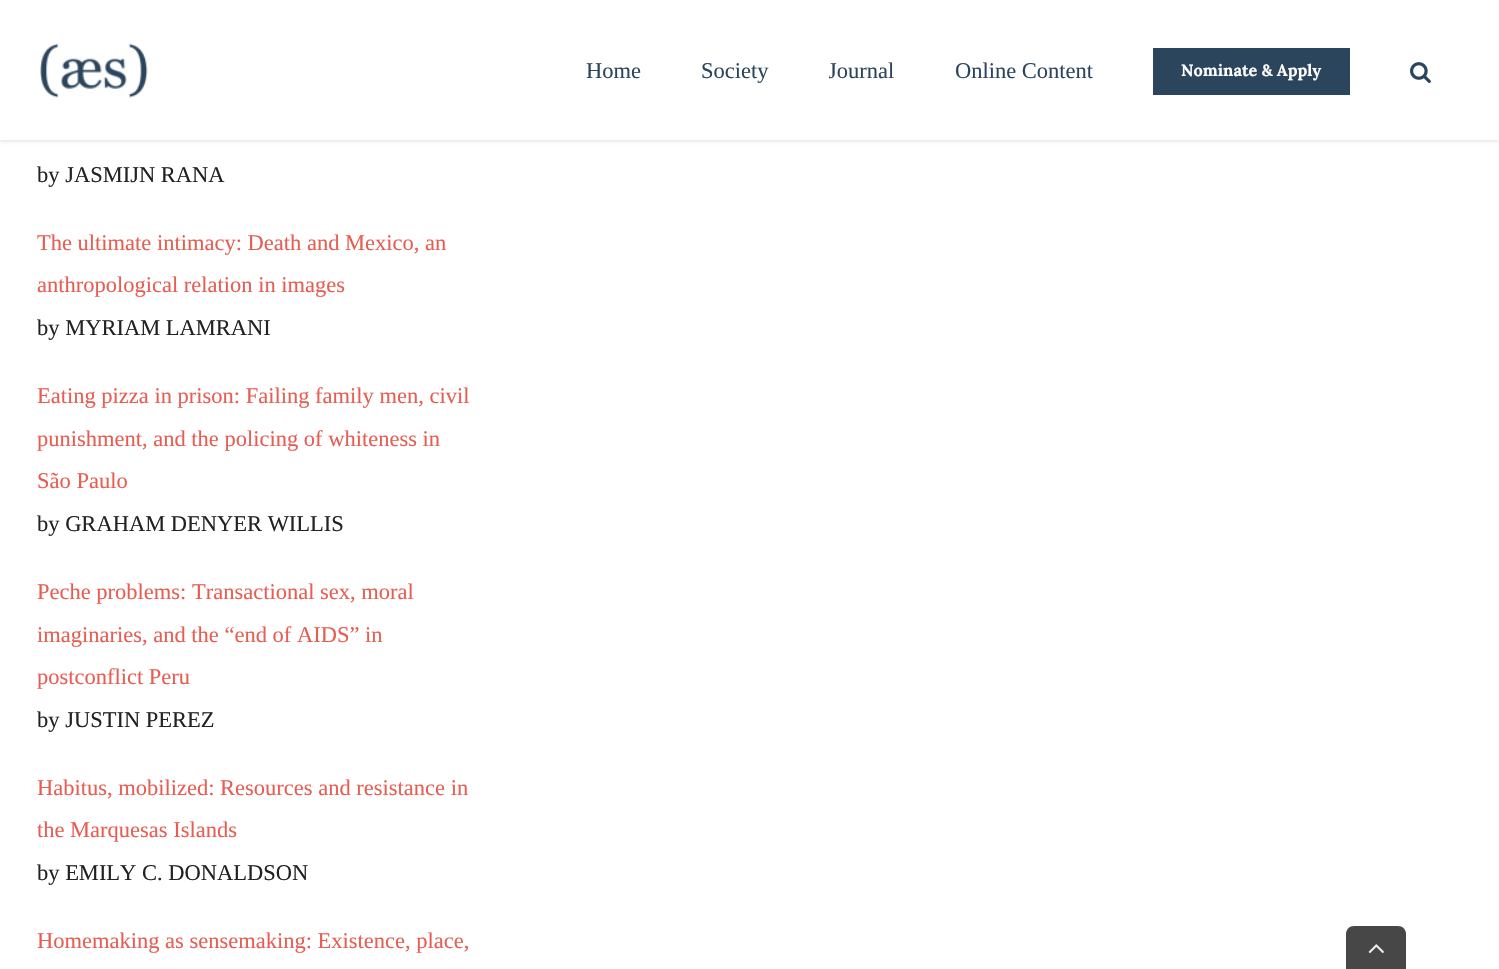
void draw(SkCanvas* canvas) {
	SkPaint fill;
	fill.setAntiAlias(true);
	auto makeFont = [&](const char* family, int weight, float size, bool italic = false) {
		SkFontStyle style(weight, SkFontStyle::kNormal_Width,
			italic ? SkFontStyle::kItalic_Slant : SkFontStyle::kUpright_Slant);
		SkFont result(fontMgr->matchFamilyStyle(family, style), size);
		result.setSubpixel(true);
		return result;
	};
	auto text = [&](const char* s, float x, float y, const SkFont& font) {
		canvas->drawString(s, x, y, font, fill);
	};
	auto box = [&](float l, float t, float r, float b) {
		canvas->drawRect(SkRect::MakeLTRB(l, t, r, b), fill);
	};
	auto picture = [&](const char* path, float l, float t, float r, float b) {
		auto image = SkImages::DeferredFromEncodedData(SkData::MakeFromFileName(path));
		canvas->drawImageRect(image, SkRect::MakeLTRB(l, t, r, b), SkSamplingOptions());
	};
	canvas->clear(0xFFFFFFFF);
	fill.setColor(0x1F000000);
	fill.setMaskFilter(SkMaskFilter::MakeBlur(kNormal_SkBlurStyle, 2));
	canvas->drawRect(SkRect::MakeLTRB(0, 1, 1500, 141), fill);
	fill.setMaskFilter(nullptr);
	fill.setColor(0xFFFFFFFF);
	box(0, 0, 1499, 140);
	picture("image0.png", 39, 43, 148, 98);
	fill.setColor(0xFF2B455C);
	box(1153, 48, 1350, 95);
	picture("image1.png", 1410, 62, 1431, 83);
	fill.setColor(0xFF474747);
	canvas->drawPath(SkPathBuilder().moveTo(1354, 926).lineTo(1398, 926).cubicTo(1402.5f, 926, 1406, 929.5f, 1406, 934).lineTo(1406, 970).lineTo(1346, 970).lineTo(1346, 934).cubicTo(1346, 929.5f, 1349.5f, 926, 1354, 926).close().detach(), fill);
	picture("image2.png", 1368, 944, 1384, 954);
	auto font1 = makeFont("Liberation Serif", 400, 22.5f);
	fill.setColor(0xFF2B455C);
	text("Home", 586, 78, font1);
	text("Society", 701, 78, font1);
	canvas->save();
	canvas->clipRect(SkRect::MakeLTRB(829, 0, 955, 139));
	text("Journal", 828, 78, font1);
	canvas->restore();
	text("Online Content", 955, 78, font1);
	auto font2 = makeFont("Lora", 700, 16.25f);
	fill.setColor(0xFFFFFFFF);
	text("Nominate & Apply", 1181, 76, font2);
	fill.setColor(0xFF222222);
	text("by JASMIJN RANA", 37, 182, font1);
	fill.setColor(0xFFE75D52);
	text("The ultimate intimacy: Death and Mexico, an", 37, 250, font1);
	text("anthropological relation in images", 37, 292, font1);
	fill.setColor(0xFF222222);
	text("by MYRIAM LAMRANI", 37, 335, font1);
	fill.setColor(0xFFE75D52);
	text("Eating pizza in prison: Failing family men, civil", 37, 403, font1);
	text("punishment, and the policing of whiteness in", 37, 446, font1);
	text("São Paulo", 37, 488, font1);
	fill.setColor(0xFF222222);
	text("by GRAHAM DENYER WILLIS", 37, 531, font1);
	fill.setColor(0xFFE75D52);
	text("Peche problems: Transactional sex, moral", 37, 599, font1);
	text("imaginaries, and the “end of AIDS” in", 37, 642, font1);
	text("postconflict Peru", 37, 684, font1);
	fill.setColor(0xFF222222);
	text("by JUSTIN PEREZ", 37, 727, font1);
	fill.setColor(0xFFE75D52);
	text("Habitus, mobilized: Resources and resistance in", 37, 795, font1);
	text("the Marquesas Islands", 37, 837, font1);
	fill.setColor(0xFF222222);
	text("by EMILY C. DONALDSON", 37, 880, font1);
	fill.setColor(0xFFE75D52);
	text("Homemaking as sensemaking: Existence, place,", 37, 948, font1);
}
